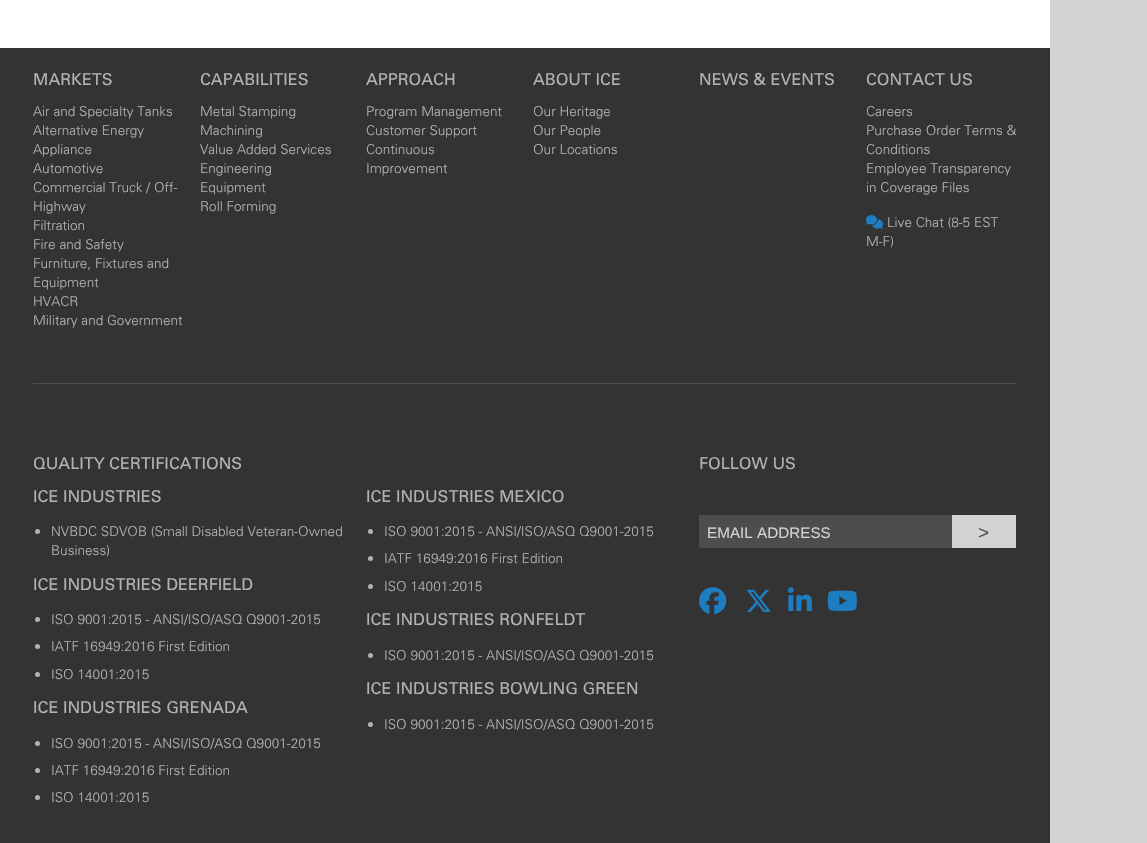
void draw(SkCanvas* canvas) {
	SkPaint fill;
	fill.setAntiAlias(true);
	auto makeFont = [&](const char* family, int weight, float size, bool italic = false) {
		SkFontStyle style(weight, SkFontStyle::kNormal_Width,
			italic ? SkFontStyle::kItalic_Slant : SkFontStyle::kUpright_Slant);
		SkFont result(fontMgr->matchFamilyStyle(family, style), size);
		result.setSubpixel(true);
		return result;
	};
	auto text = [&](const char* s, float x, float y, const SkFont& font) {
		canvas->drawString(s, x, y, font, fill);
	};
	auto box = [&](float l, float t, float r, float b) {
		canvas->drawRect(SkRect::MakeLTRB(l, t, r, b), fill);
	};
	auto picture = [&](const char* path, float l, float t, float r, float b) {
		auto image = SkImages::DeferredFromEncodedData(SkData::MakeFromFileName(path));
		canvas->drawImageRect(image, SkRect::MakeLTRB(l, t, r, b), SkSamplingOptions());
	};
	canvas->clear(0xFFD3D3D3);
	fill.setColor(0xFFFFFFFF);
	box(0, 0, 1050, 48);
	fill.setColor(0xFF333333);
	box(0, 48, 1050, 843);
	picture("image0.png", 866, 215, 883, 229);
	fill.setColor(0xFF4D4D4F);
	box(33, 383, 1017, 384);
	fill.setColor(0xFFB2B2B2);
	canvas->drawCircle(37.5f, 531.5f, 2.5f, fill);
	canvas->drawCircle(37.5f, 619.5f, 2.5f, fill);
	canvas->drawCircle(37.5f, 646.5f, 2.5f, fill);
	canvas->drawCircle(37.5f, 674.5f, 2.5f, fill);
	canvas->drawCircle(37.5f, 743.5f, 2.5f, fill);
	canvas->drawCircle(37.5f, 770.5f, 2.5f, fill);
	canvas->drawCircle(37.5f, 797.5f, 2.5f, fill);
	canvas->drawCircle(370.5f, 531.5f, 2.5f, fill);
	canvas->drawCircle(370.5f, 558.5f, 2.5f, fill);
	canvas->drawCircle(370.5f, 586.5f, 2.5f, fill);
	canvas->drawCircle(370.5f, 655.5f, 2.5f, fill);
	canvas->drawCircle(370.5f, 724.5f, 2.5f, fill);
	fill.setColor(0xFF4D4D4F);
	box(699, 515, 952, 548);
	fill.setColor(0xFFD3D3D3);
	box(952, 515, 1016, 548);
	picture("image1.png", 699, 587, 727, 615);
	picture("image2.png", 746, 589, 771, 612);
	picture("image3.png", 788, 587, 812, 611);
	picture("image4.png", 827, 590, 857, 611);
	auto font1 = makeFont("Univers", 400, 16.3f);
	fill.setColor(0xFFB2B2B2);
	text("MARKETS", 33, 85, font1);
	auto font2 = makeFont("Univers", 300, 13.6f);
	text("Air and Specialty Tanks", 33, 116, font2);
	text("Alternative Energy", 33, 135, font2);
	text("Appliance", 33, 154, font2);
	text("Automotive", 33, 173, font2);
	text("Commercial Truck / Off-", 33, 192, font2);
	text("Highway", 33, 211, font2);
	text("Filtration", 33, 230, font2);
	text("Fire and Safety", 33, 249, font2);
	text("Furniture, Fixtures and", 33, 268, font2);
	text("Equipment", 33, 287, font2);
	text("HVACR", 33, 306, font2);
	text("Military and Government", 33, 325, font2);
	text("CAPABILITIES", 200, 85, font1);
	text("Metal Stamping", 200, 116, font2);
	text("Machining", 200, 135, font2);
	text("Value Added Services", 200, 154, font2);
	text("Engineering", 200, 173, font2);
	text("Equipment", 200, 192, font2);
	text("Roll Forming", 200, 211, font2);
	text("APPROACH", 366, 85, font1);
	text("Program Management", 366, 116, font2);
	text("Customer Support", 366, 135, font2);
	text("Continuous", 366, 154, font2);
	text("Improvement", 366, 173, font2);
	text("ABOUT ICE", 533, 85, font1);
	text("Our Heritage", 533, 116, font2);
	text("Our People", 533, 135, font2);
	text("Our Locations", 533, 154, font2);
	text("NEWS & EVENTS", 699, 85, font1);
	text("CONTACT US", 866, 85, font1);
	text("Careers", 866, 116, font2);
	text("Purchase Order Terms &", 866, 135, font2);
	text("Conditions", 866, 154, font2);
	text("Employee Transparency", 866, 173, font2);
	text("in Coverage Files", 866, 192, font2);
	text("Live Chat (8-5 EST", 887, 227, font2);
	text("M-F)", 866, 246, font2);
	text("QUALITY CERTIFICATIONS", 33, 469, font1);
	text("ICE INDUSTRIES", 33, 502, font1);
	text("NVBDC SDVOB (Small Disabled Veteran-Owned", 51, 536, font2);
	text("Business)", 51, 555, font2);
	text("ICE INDUSTRIES DEERFIELD", 33, 590, font1);
	text("ISO 9001:2015 - ANSI/ISO/ASQ Q9001-2015", 51, 624, font2);
	text("IATF 16949:2016 First Edition", 51, 651, font2);
	text("ISO 14001:2015", 51, 679, font2);
	text("ICE INDUSTRIES GRENADA", 33, 713, font1);
	text("ISO 9001:2015 - ANSI/ISO/ASQ Q9001-2015", 51, 748, font2);
	text("IATF 16949:2016 First Edition", 51, 775, font2);
	text("ISO 14001:2015", 51, 802, font2);
	text("ICE INDUSTRIES MEXICO", 366, 502, font1);
	text("ISO 9001:2015 - ANSI/ISO/ASQ Q9001-2015", 384, 536, font2);
	text("IATF 16949:2016 First Edition", 384, 563, font2);
	text("ISO 14001:2015", 384, 591, font2);
	text("ICE INDUSTRIES RONFELDT", 366, 625, font1);
	text("ISO 9001:2015 - ANSI/ISO/ASQ Q9001-2015", 384, 660, font2);
	text("ICE INDUSTRIES BOWLING GREEN", 366, 694, font1);
	text("ISO 9001:2015 - ANSI/ISO/ASQ Q9001-2015", 384, 729, font2);
	text("FOLLOW US", 699, 469, font1);
	auto font3 = makeFont("Liberation Sans", 400, 15.25f);
	fill.setColor(0xFFD3D3D3);
	text("EMAIL ADDRESS", 707, 538, font3);
	auto font4 = makeFont("Liberation Sans", 400, 19);
	fill.setColor(0xFF4D4D4F);
	text(">", 978, 539, font4);
}
